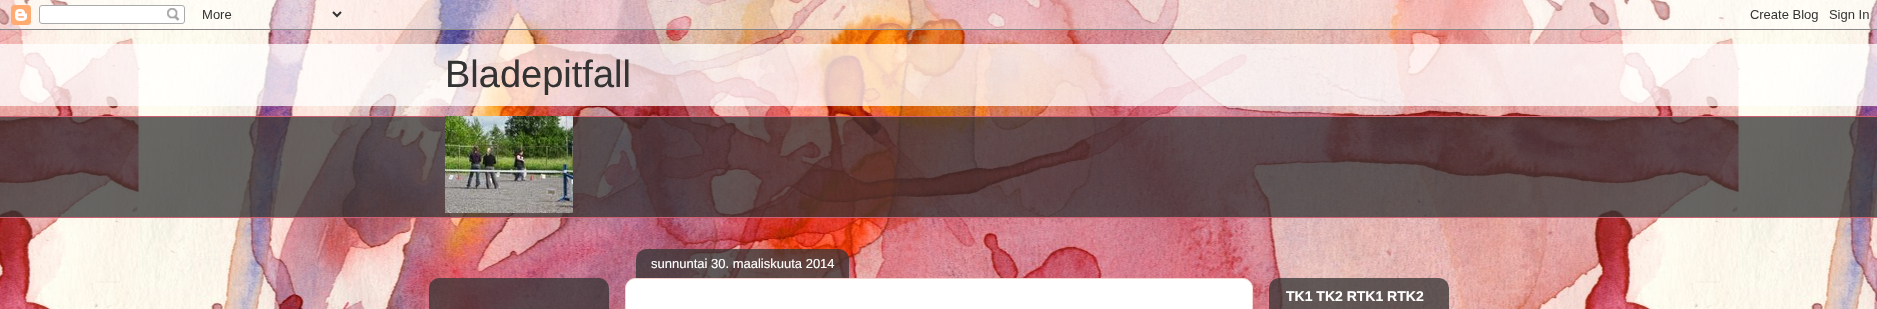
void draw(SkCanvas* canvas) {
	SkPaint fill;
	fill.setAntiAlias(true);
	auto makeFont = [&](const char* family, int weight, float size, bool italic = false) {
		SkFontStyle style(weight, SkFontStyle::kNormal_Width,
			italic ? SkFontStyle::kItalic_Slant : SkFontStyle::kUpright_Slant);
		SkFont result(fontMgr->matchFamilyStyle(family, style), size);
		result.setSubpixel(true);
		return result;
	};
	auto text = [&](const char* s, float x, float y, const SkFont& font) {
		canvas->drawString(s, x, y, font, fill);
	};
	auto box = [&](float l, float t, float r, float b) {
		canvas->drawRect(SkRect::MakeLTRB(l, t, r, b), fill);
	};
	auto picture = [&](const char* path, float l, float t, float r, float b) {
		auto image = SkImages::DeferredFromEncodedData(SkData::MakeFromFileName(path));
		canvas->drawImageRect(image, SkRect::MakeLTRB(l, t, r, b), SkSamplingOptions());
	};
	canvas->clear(0xFFFFFFFF);
	picture("image0.png", 0, 0, 1877, 309);
	picture("image1.png", 0, 0, 1877, 30);
	fill.setColor(0xBFFFFFFF);
	box(0, 44, 1877, 106);
	fill.setColor(0xBF333333);
	box(0, 117, 1877, 217);
	fill.setColor(0xFFCE5F70);
	box(0, 116, 1877, 117);
	picture("image2.png", 445, 116, 573, 213);
	box(0, 217, 1877, 218);
	fill.setColor(0xFFFFFFFF);
	canvas->drawPath(SkPathBuilder().moveTo(635, 278.5f).lineTo(1243, 278.5f).cubicTo(1248, 278.5f, 1252.5f, 283, 1252.5f, 288).lineTo(1252.5f, 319.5f).lineTo(625.5f, 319.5f).lineTo(625.5f, 288).cubicTo(625.5f, 283, 630, 278.5f, 635, 278.5f).close().detach(), fill);
	fill.setStyle(SkPaint::kStroke_Style);
	fill.setStrokeWidth(1);
	fill.setColor(0xFFF4D3CC);
	canvas->drawPath(SkPathBuilder().moveTo(635, 278.5f).lineTo(1243, 278.5f).cubicTo(1248, 278.5f, 1252.5f, 283, 1252.5f, 288).lineTo(1252.5f, 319.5f).lineTo(625.5f, 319.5f).lineTo(625.5f, 288).cubicTo(625.5f, 283, 630, 278.5f, 635, 278.5f).close().detach(), fill);
	picture("image3.png", 636, 249, 849, 278);
	picture("image4.png", 429, 278, 609, 309);
	picture("image5.png", 1269, 278, 1449, 309);
	auto font1 = makeFont("Liberation Sans", 400, 38);
	fill.setStyle(SkPaint::kFill_Style);
	fill.setColor(0xFF333333);
	text("Bladepitfall", 445, 87, font1);
	auto font2 = makeFont("Liberation Sans", 400, 13);
	fill.setColor(0xFFFFFFFF);
	text("sunnuntai 30. maaliskuuta 2014", 651, 268, font2);
	auto font3 = makeFont("Liberation Sans", 700, 14);
	text("TK1 TK2 RTK1 RTK2", 1286, 301, font3);
}
